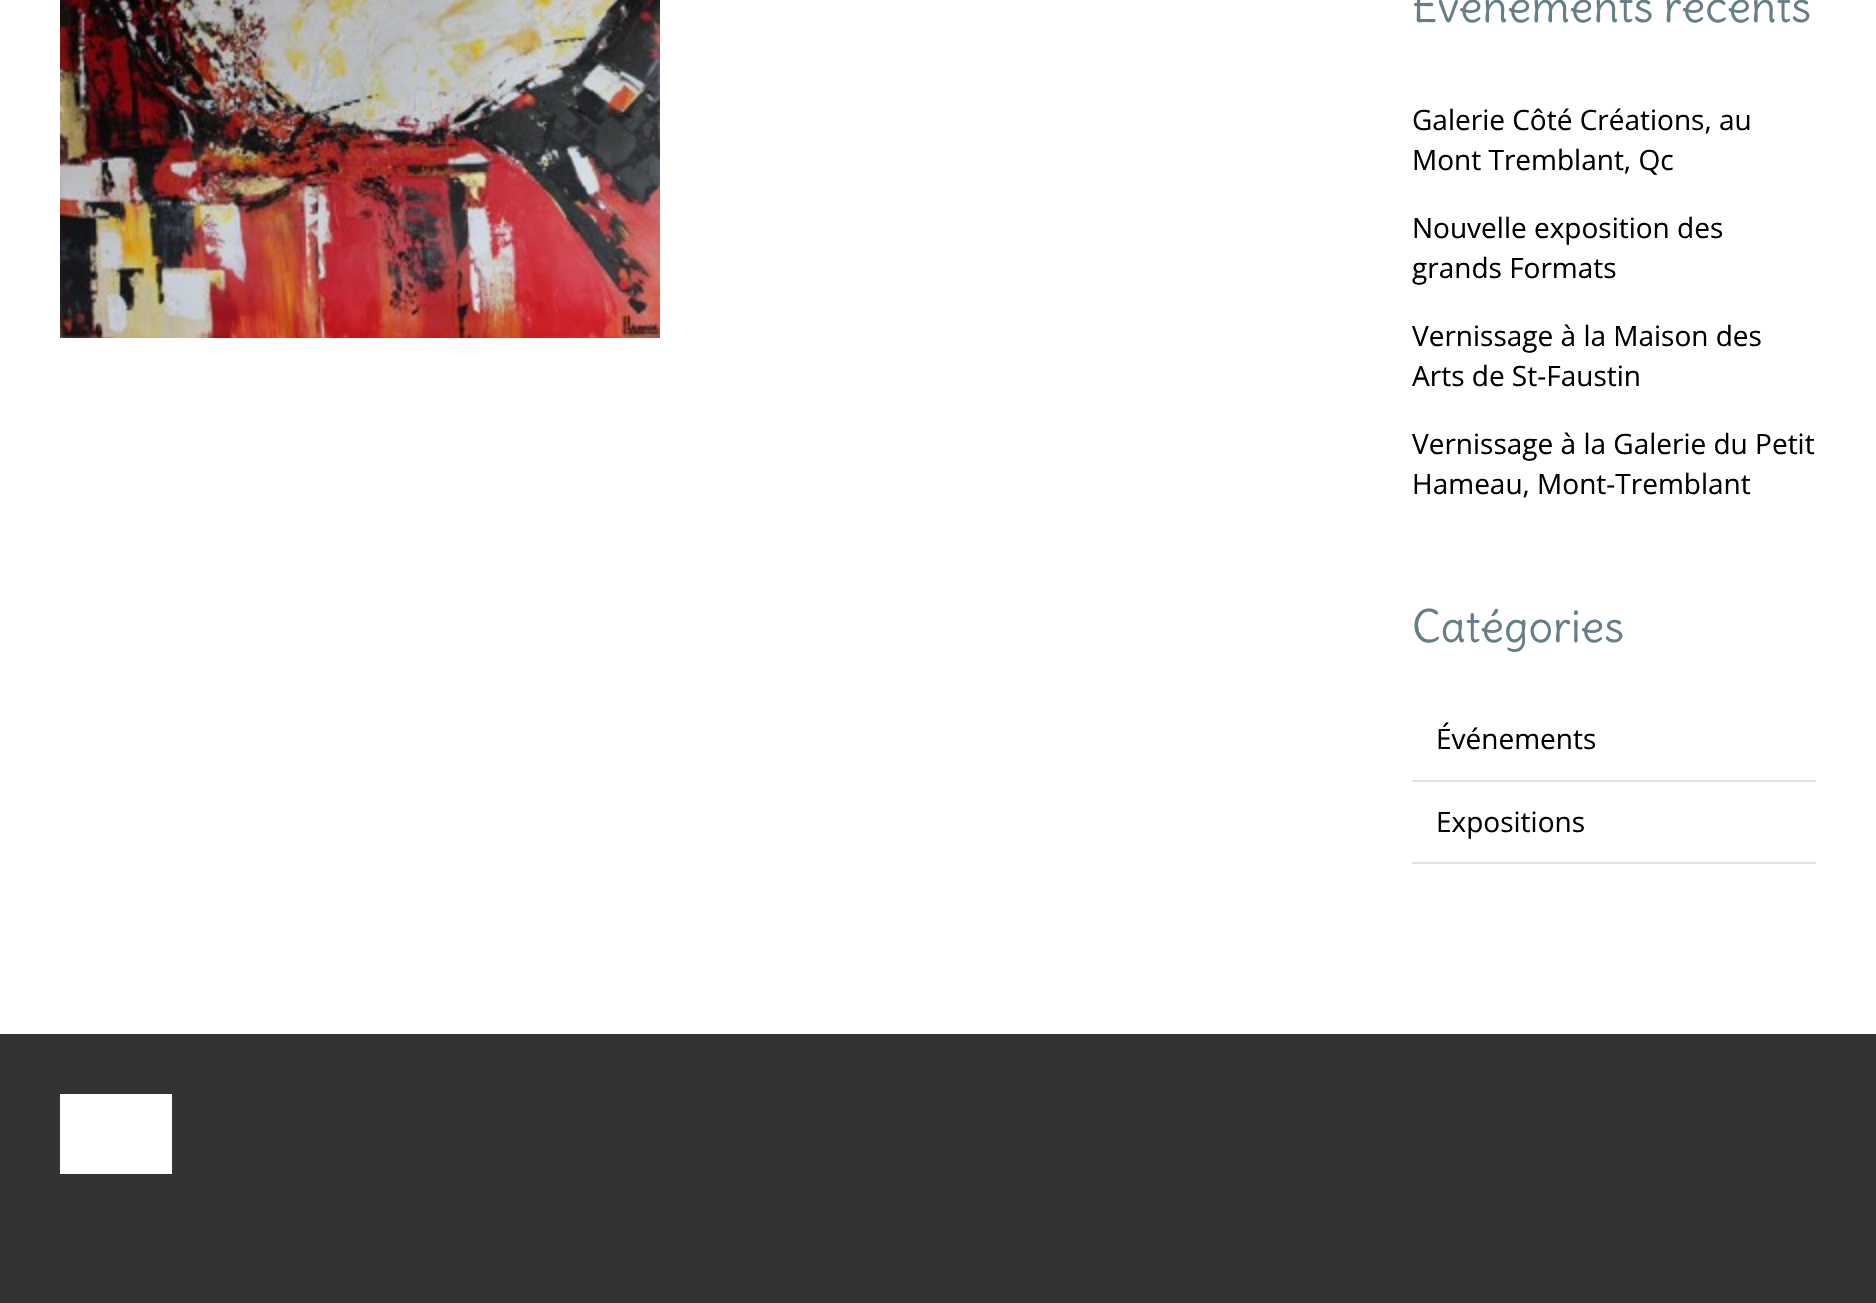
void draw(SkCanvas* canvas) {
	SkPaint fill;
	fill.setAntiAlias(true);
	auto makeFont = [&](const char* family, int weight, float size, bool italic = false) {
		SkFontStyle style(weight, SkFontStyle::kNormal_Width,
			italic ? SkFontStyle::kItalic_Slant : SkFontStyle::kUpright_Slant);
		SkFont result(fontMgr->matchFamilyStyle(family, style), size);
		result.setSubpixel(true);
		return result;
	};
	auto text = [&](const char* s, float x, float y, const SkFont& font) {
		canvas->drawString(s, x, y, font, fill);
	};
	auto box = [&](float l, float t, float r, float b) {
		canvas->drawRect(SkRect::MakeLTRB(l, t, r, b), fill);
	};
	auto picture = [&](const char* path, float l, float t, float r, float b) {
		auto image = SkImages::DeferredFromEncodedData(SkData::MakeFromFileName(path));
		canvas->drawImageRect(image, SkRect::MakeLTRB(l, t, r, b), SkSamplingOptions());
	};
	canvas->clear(0xFFFFFFFF);
	picture("image0.png", 60, 0, 660, 338);
	fill.setColor(0xFFE0DEDE);
	box(1412, 780, 1816, 782);
	box(1412, 862, 1816, 864);
	fill.setColor(0xFF333333);
	box(0, 1034, 1876, 1303);
	fill.setColor(0xFFFFFFFF);
	box(60, 1094, 172, 1174);
	auto font1 = makeFont("Delius", 400, 43.75f);
	fill.setColor(0xFF657E87);
	text("Événements récents", 1412, 22, font1);
	auto font2 = makeFont("Open Sans", 400, 28);
	fill.setColor(0xFF000000);
	text("Galerie Côté Créations, au", 1412, 130, font2);
	text("Mont Tremblant, Qc", 1412, 170, font2);
	text("Nouvelle exposition des", 1412, 238, font2);
	text("grands Formats", 1412, 278, font2);
	text("Vernissage à la Maison des", 1412, 346, font2);
	text("Arts de St-Faustin", 1412, 386, font2);
	text("Vernissage à la Galerie du Petit", 1412, 454, font2);
	text("Hameau, Mont-Tremblant", 1412, 494, font2);
	fill.setColor(0xFF657E87);
	text("Catégories", 1412, 642, font1);
	fill.setColor(0xFF000000);
	text("Événements", 1436, 749, font2);
	text("Expositions", 1436, 832, font2);
}
